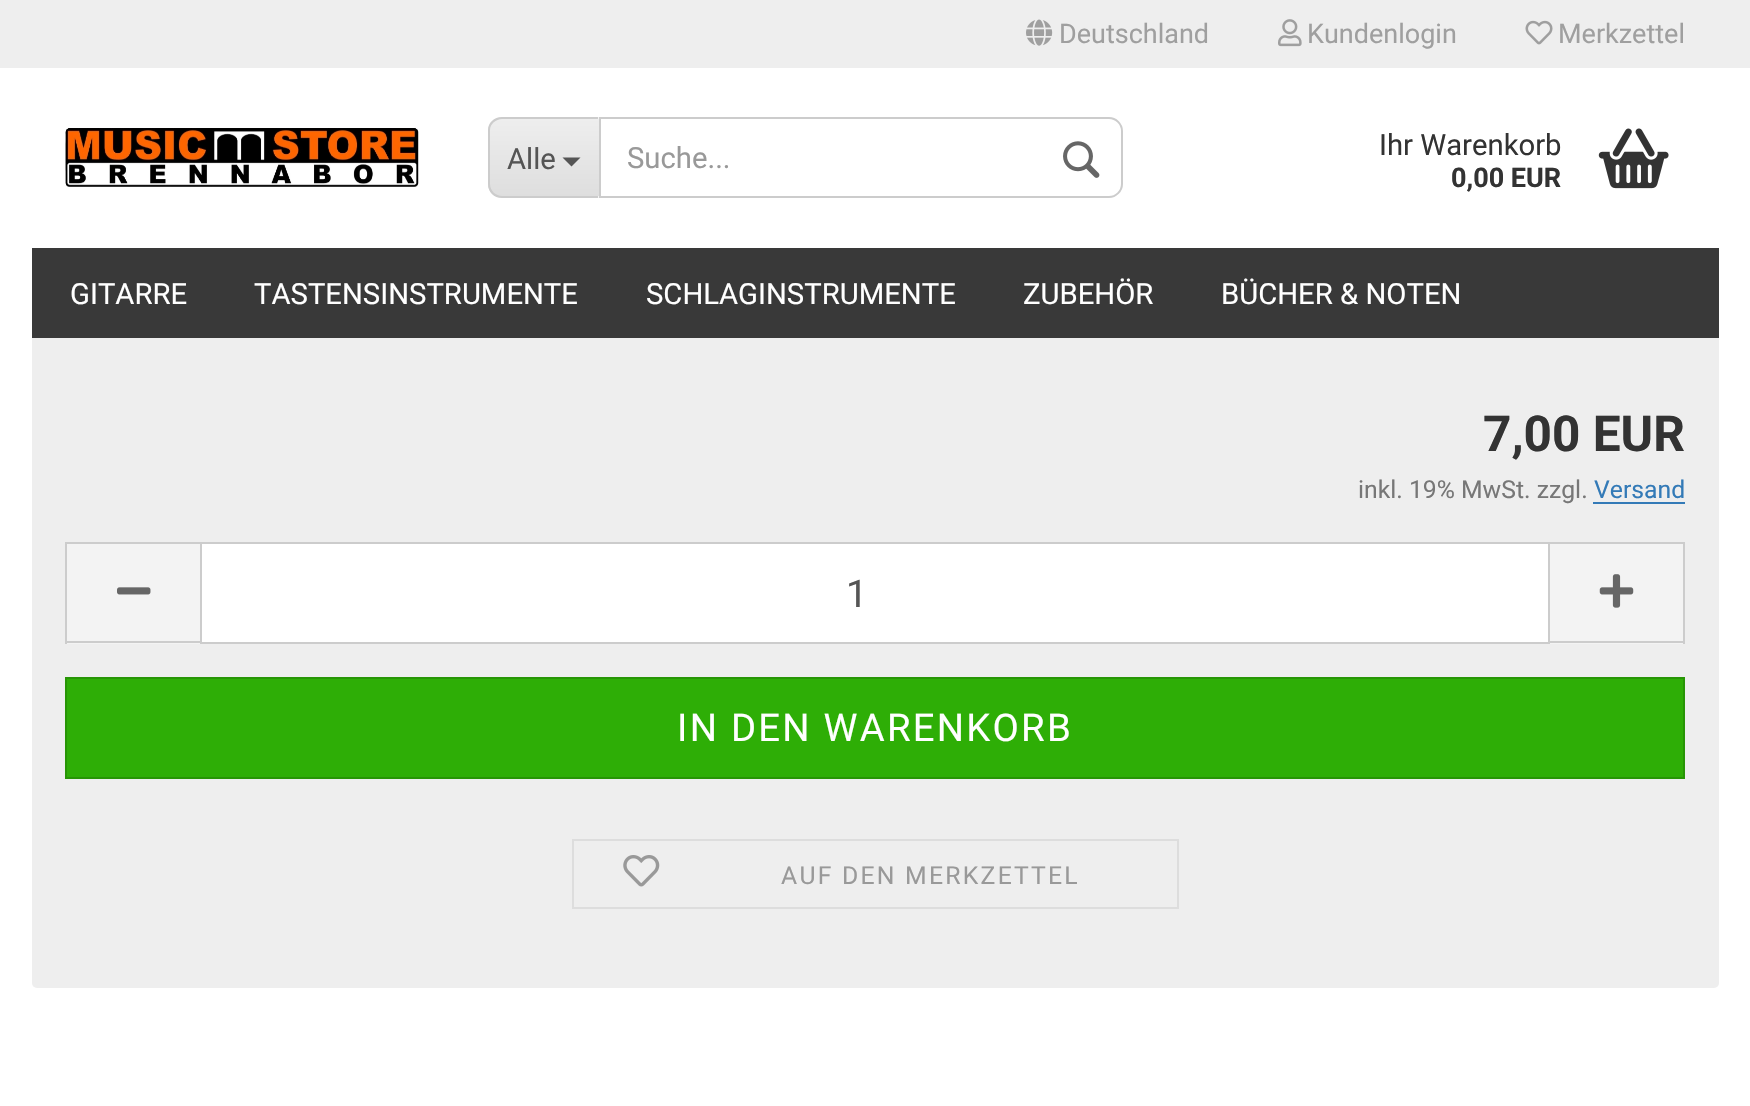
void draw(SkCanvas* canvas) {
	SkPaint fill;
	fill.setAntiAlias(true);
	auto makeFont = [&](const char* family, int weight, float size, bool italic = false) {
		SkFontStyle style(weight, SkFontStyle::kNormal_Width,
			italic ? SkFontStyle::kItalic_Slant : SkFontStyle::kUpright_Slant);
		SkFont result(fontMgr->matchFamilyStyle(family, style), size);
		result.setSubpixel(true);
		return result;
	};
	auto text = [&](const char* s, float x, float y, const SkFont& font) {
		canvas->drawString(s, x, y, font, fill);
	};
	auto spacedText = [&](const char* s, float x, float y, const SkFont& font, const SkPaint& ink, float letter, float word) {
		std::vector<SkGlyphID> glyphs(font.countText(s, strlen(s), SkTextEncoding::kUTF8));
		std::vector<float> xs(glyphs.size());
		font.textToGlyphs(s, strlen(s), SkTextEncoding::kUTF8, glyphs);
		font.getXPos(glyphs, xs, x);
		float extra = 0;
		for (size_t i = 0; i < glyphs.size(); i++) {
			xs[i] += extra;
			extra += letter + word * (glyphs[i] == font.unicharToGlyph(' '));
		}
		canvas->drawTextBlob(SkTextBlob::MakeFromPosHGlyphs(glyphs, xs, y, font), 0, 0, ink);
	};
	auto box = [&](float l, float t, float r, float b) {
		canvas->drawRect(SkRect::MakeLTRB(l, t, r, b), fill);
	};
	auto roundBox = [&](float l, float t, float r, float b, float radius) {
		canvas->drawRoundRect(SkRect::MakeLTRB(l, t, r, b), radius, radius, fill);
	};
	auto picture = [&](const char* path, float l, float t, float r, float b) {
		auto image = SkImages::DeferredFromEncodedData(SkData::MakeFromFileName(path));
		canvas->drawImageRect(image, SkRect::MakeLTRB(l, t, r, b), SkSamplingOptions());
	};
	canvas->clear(0xFFFFFFFF);
	fill.setColor(0xFFEEEEEE);
	roundBox(32, 180, 1719, 988, 5);
	fill.setColor(0xFFFFFFFF);
	box(32, 180, 1719, 338);
	fill.setColor(0xFFEEEEEE);
	box(0, 0, 1750, 68);
	picture("image0.png", 1026, 19, 1053, 46);
	picture("image1.png", 1278, 19, 1302, 47);
	picture("image2.png", 1525, 20, 1553, 45);
	picture("image3.png", 65, 128, 419, 187);
	fill.setColor(0xFFF3F3F3);
	canvas->drawPath(SkPathBuilder().moveTo(502, 117).lineTo(599, 117).lineTo(599, 198).lineTo(502, 198).cubicTo(494.5f, 198, 488, 191.5f, 488, 184).lineTo(488, 131).cubicTo(488, 123.5f, 494.5f, 117, 502, 117).close().detach(), fill);
	canvas->save();
	canvas->clipPath(SkPathBuilder().moveTo(502, 117).lineTo(599, 117).lineTo(599, 198).lineTo(502, 198).cubicTo(494.5f, 198, 488, 191.5f, 488, 184).lineTo(488, 131).cubicTo(488, 123.5f, 494.5f, 117, 502, 117).close().detach(), true);
	{
		const SkColor colors[] = {0xFFEEEEEE, 0xFFDEDEDE};
		const float stops[] = {0, 1};
		const SkPoint ends[] = {{545, 119}, {545, 196}};
		fill.setShader(SkGradientShader::MakeLinear(ends, colors, stops, 2, SkTileMode::kClamp));
		fill.setAlpha(255);
	}
	box(488, 119, 599, 196);
	canvas->restore();
	fill.setShader(nullptr);
	fill.setColor(0xFFCCCCCC);
	canvas->drawPath(SkPathBuilder(SkPathFillType::kEvenOdd).moveTo(502, 117).lineTo(598, 117).lineTo(598, 198).lineTo(502, 198).cubicTo(494, 198, 488, 192, 488, 184).lineTo(488, 130).cubicTo(488, 123, 494, 117, 502, 117).close().moveTo(502, 119).lineTo(598, 119).lineTo(598, 196).lineTo(502, 196).cubicTo(496, 196, 490, 191, 490, 184).lineTo(490, 130).cubicTo(490, 124, 496, 119, 502, 119).close().detach(), fill);
	fill.setColor(0xFF555555);
	canvas->drawPath(SkPathBuilder().moveTo(562.5f, 157.5f).lineTo(580.5f, 157.5f).lineTo(571.5f, 166.5f).close().detach(), fill);
	fill.setStyle(SkPaint::kStroke_Style);
	fill.setStrokeWidth(2);
	fill.setColor(0xFFCCCCCC);
	canvas->drawPath(SkPathBuilder().moveTo(600, 118).lineTo(1109, 118).cubicTo(1116, 118, 1122, 124, 1122, 131).lineTo(1122, 184).cubicTo(1122, 191, 1116, 197, 1109, 197).lineTo(600, 197).close().detach(), fill);
	picture("image4.png", 1063, 141, 1100, 178);
	picture("image5.png", 1598, 128, 1669, 189);
	fill.setStyle(SkPaint::kFill_Style);
	fill.setColor(0xFF393939);
	box(32, 248, 1719, 338);
	fill.setColor(0xFF337AB7);
	box(1593, 502, 1685, 504);
	fill.setColor(0xFFF3F3F3);
	box(67, 544, 200, 644);
	fill.setColor(0xFFCCCCCC);
	box(65, 542, 200, 544);
	box(65, 641, 200, 643);
	box(65, 542, 67, 644);
	picture("image6.png", 117, 587, 151, 595);
	fill.setColor(0xFFFFFFFF);
	canvas->drawRect(SkRect::MakeLTRB(201, 543, 1549, 643), fill);
	fill.setStyle(SkPaint::kStroke_Style);
	fill.setColor(0xFFCCCCCC);
	canvas->drawRect(SkRect::MakeLTRB(201, 543, 1549, 643), fill);
	fill.setStyle(SkPaint::kFill_Style);
	fill.setColor(0xFFF3F3F3);
	box(1550, 544, 1683, 644);
	fill.setColor(0xFFCCCCCC);
	box(1550, 542, 1685, 544);
	box(1683, 542, 1685, 644);
	box(1550, 641, 1685, 643);
	picture("image7.png", 1599, 574, 1634, 608);
	fill.setColor(0xFF2EAE06);
	canvas->drawRect(SkRect::MakeLTRB(66, 678, 1684, 778), fill);
	fill.setStyle(SkPaint::kStroke_Style);
	fill.setColor(0xFF279505);
	canvas->drawRect(SkRect::MakeLTRB(66, 678, 1684, 778), fill);
	fill.setColor(0xFFDDDDDD);
	canvas->drawRect(SkRect::MakeLTRB(573, 840, 1178, 908), fill);
	picture("image8.png", 623, 855, 660, 887);
	auto font1 = makeFont("Roboto", 400, 27);
	fill.setStyle(SkPaint::kFill_Style);
	fill.setColor(0xFF9F9F9F);
	text("Deutschland", 1059, 43, font1);
	text("Kundenlogin", 1307, 43, font1);
	text("Merkzettel", 1558, 43, font1);
	auto font2 = makeFont("Roboto", 400, 29.25f);
	fill.setColor(0xFF555555);
	text("Alle", 507, 169, font2);
	fill.setColor(0xFF999999);
	text("Suche...", 627, 168, font2);
	fill.setColor(0xFF333333);
	text("Ihr Warenkorb", 1379, 155, font2);
	auto font3 = makeFont("Roboto", 700, 27);
	text("0,00 EUR", 1451, 187, font3);
	fill.setColor(0xFFFFFFFF);
	text("GITARRE", 70, 304, font2);
	text("TASTENSINSTRUMENTE", 254, 304, font2);
	text("SCHLAGINSTRUMENTE", 646, 304, font2);
	text("ZUBEHÖR", 1023, 304, font2);
	text("BÜCHER & NOTEN", 1221, 304, font2);
	auto font4 = makeFont("Roboto", 700, 49.5f);
	fill.setColor(0xFF333333);
	text("7,00 EUR", 1483, 451, font4);
	auto font5 = makeFont("Roboto", 400, 24.75f);
	fill.setColor(0xFF777777);
	text("inkl. 19% MwSt. zzgl.", 1358, 498, font5);
	fill.setColor(0xFF337AB7);
	text("Versand", 1594, 498, font5);
	auto font6 = makeFont("Roboto", 400, 38.25f);
	fill.setColor(0xFF555555);
	text("1", 846, 607, font6);
	fill.setColor(0xFFFFFFFF);
	spacedText("IN DEN WARENKORB", 677, 741, font6, fill, 2.25f, 0);
	fill.setColor(0xFF999999);
	spacedText("AUF DEN MERKZETTEL", 781, 884, font5, fill, 2.25f, 0);
}
